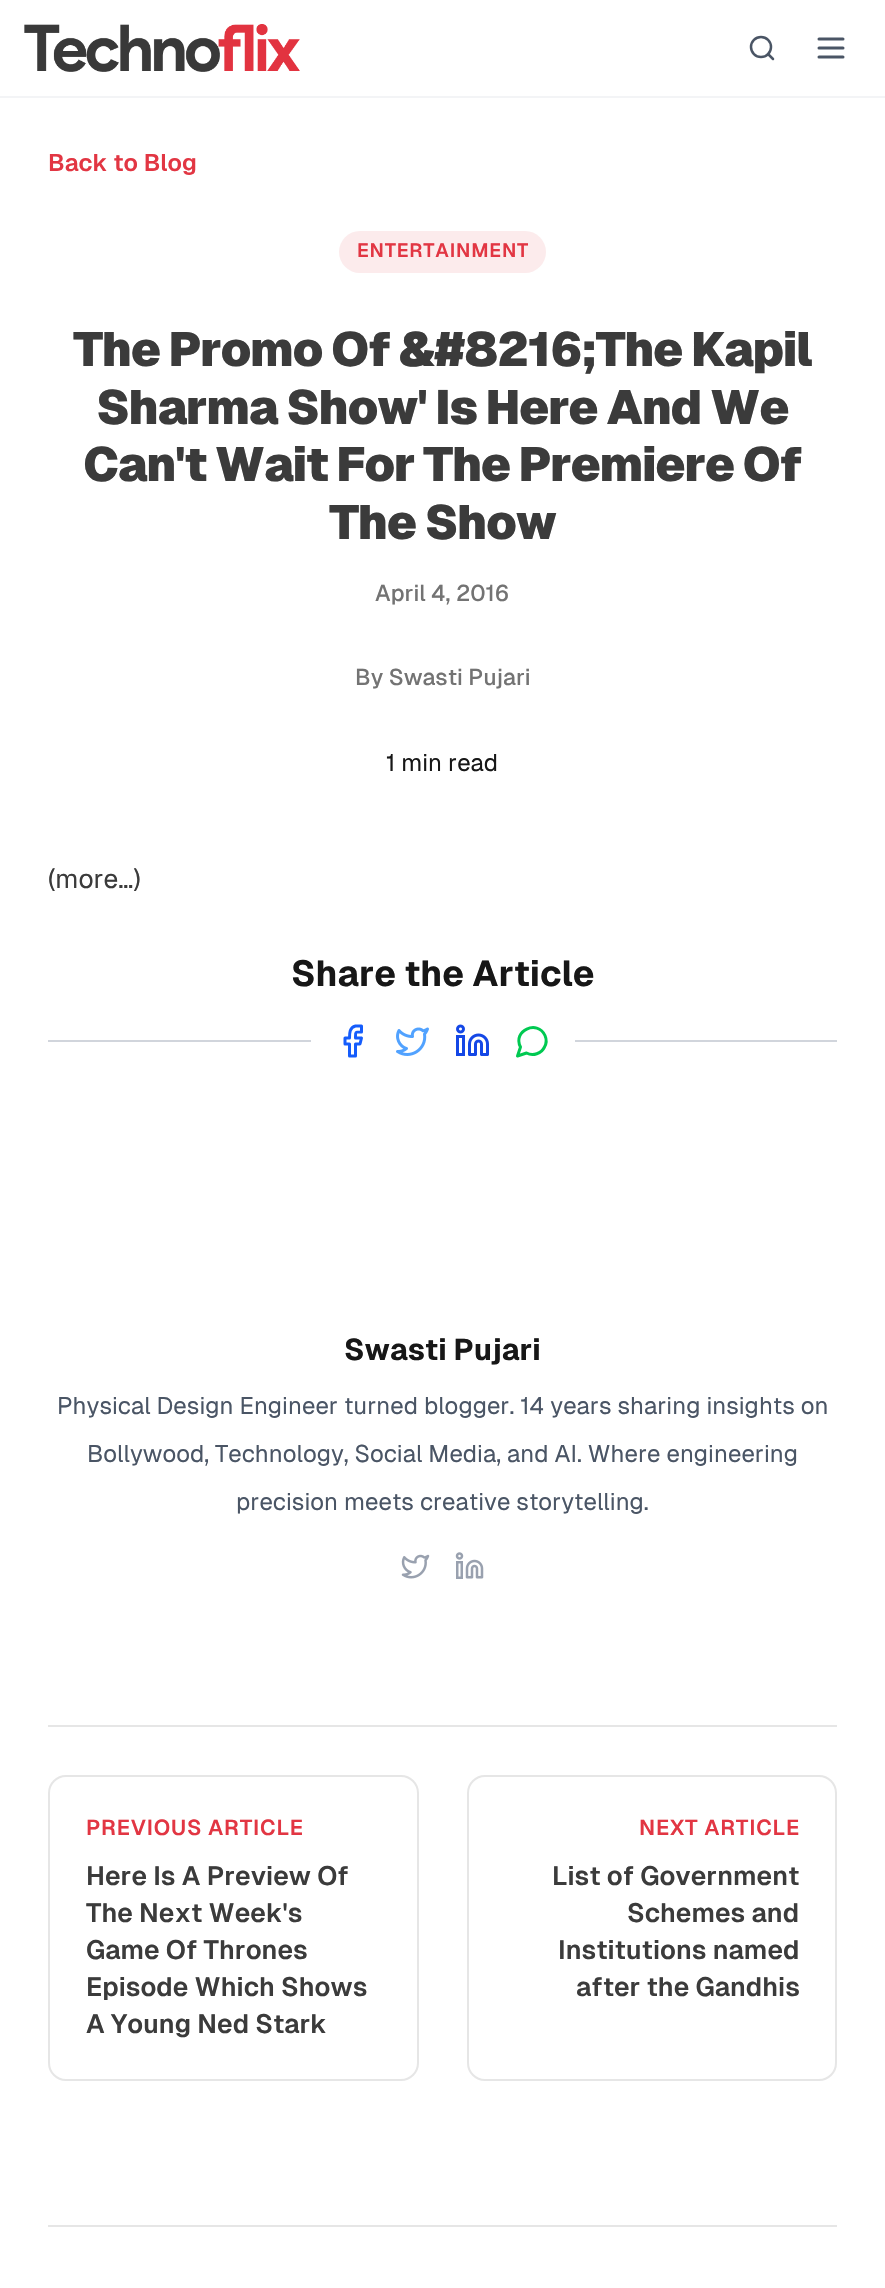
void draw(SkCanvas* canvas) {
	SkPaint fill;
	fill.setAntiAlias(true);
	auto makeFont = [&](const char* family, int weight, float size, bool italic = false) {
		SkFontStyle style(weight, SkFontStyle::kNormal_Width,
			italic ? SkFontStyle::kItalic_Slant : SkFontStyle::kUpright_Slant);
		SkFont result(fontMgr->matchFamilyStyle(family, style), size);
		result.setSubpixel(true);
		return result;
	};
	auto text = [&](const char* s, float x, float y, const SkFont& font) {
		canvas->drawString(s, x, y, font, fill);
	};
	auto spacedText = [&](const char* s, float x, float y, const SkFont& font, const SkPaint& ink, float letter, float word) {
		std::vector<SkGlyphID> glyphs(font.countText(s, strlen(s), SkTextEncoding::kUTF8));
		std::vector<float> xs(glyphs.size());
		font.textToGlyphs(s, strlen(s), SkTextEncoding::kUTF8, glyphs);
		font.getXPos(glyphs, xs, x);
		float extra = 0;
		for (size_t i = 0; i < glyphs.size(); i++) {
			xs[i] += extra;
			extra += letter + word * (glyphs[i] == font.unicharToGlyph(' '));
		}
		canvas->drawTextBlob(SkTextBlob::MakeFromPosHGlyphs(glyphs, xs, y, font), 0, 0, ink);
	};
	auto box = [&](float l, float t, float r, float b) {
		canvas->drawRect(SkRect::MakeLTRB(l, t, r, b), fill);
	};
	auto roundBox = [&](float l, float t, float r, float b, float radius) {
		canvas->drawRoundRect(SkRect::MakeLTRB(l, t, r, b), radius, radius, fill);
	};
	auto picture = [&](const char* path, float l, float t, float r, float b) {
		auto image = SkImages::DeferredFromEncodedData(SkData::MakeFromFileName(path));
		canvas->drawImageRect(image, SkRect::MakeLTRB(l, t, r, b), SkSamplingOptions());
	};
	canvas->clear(0xFFFFFFFF);
	fill.setColor(0xFFF3F4F6);
	box(0, 96, 885, 98);
	picture("image0.png", 24, 24, 300, 72);
	fill.setStyle(SkPaint::kStroke_Style);
	fill.setStrokeWidth(2.5f);
	fill.setStrokeCap(SkPaint::kRound_Cap);
	fill.setStrokeJoin(SkPaint::kRound_Join);
	fill.setColor(0xFF4A5565);
	canvas->drawPath(SkPathBuilder().moveTo(773, 59).lineTo(768, 54).detach(), fill);
	fill.setStrokeCap(SkPaint::kButt_Cap);
	fill.setStrokeJoin(SkPaint::kMiter_Join);
	canvas->drawCircle(761, 47, 10, fill);
	fill.setStrokeWidth(3);
	fill.setStrokeCap(SkPaint::kRound_Cap);
	fill.setStrokeJoin(SkPaint::kRound_Join);
	canvas->drawPath(SkPathBuilder().moveTo(819, 48).lineTo(843, 48).moveTo(819, 57).lineTo(843, 57).moveTo(819, 39).lineTo(843, 39).detach(), fill);
	fill.setStyle(SkPaint::kFill_Style);
	fill.setColor(0xFFFCEBEC);
	roundBox(339, 231, 546, 273, 21);
	fill.setColor(0xFFD1D5DC);
	box(48, 1040, 311, 1042);
	fill.setStyle(SkPaint::kStroke_Style);
	fill.setColor(0xFF155DFC);
	canvas->drawPath(SkPathBuilder().moveTo(361.5f, 1026).lineTo(355.5f, 1026).cubicTo(349.5f, 1027.5f, 349.5f, 1033, 349.5f, 1038).lineTo(345, 1038).lineTo(345, 1044).lineTo(349.5f, 1044).lineTo(349.5f, 1056).lineTo(355.5f, 1056).lineTo(355.5f, 1044).lineTo(360, 1044).lineTo(361.5f, 1038).lineTo(355.5f, 1038).cubicTo(355.5f, 1031.5f, 355, 1032, 361.5f, 1032).close().detach(), fill);
	picture("image1.png", 396, 1027, 429, 1056);
	picture("image2.png", 456, 1024, 489, 1056);
	fill.setColor(0xFF00C951);
	canvas->drawPath(SkPathBuilder().moveTo(526.5f, 1053).cubicTo(533, 1056.5f, 541.5f, 1053.5f, 544.5f, 1047).cubicTo(546.5f, 1043.5f, 546.5f, 1039, 545, 1035.5f).cubicTo(537.5f, 1019, 512, 1031, 520.5f, 1047).lineTo(517.5f, 1056).close().detach(), fill);
	fill.setStyle(SkPaint::kFill_Style);
	fill.setColor(0xFFD1D5DC);
	box(575, 1040, 837, 1042);
	picture("image3.png", 401, 1554, 430, 1579);
	picture("image4.png", 455, 1552, 484, 1579);
	fill.setColor(0xFFE6E6E6);
	box(48, 1725, 837, 1727);
	fill.setStyle(SkPaint::kStroke_Style);
	fill.setStrokeWidth(2);
	fill.setStrokeCap(SkPaint::kButt_Cap);
	fill.setStrokeJoin(SkPaint::kMiter_Join);
	canvas->drawRoundRect(SkRect::MakeLTRB(49, 1776, 418, 2080), 17, 17, fill);
	canvas->drawRoundRect(SkRect::MakeLTRB(468, 1776, 836, 2080), 17, 17, fill);
	fill.setStyle(SkPaint::kFill_Style);
	box(48, 2225, 837, 2227);
	auto font1 = makeFont("Geist", 600, 24);
	fill.setColor(0xFFE23643);
	text("Back to Blog", 48, 171, font1);
	auto font2 = makeFont("Geist", 600, 19.25f);
	spacedText("ENTERTAINMENT", 357, 257, font2, fill, 0.75f, 0);
	auto font3 = makeFont("Geist", 900, 48);
	fill.setColor(0xFF3B3B3B);
	spacedText("The Promo Of &#8216;The Kapil", 73, 366, font3, fill, -1.45f, 0);
	spacedText("Sharma Show' Is Here And We", 96, 424, font3, fill, -1.45f, 0);
	spacedText("Can't Wait For The Premiere Of", 83, 481, font3, fill, -1.45f, 0);
	spacedText("The Show", 329, 539, font3, fill, -1.45f, 0);
	auto font4 = makeFont("Geist", 500, 22.75f);
	fill.setColor(0xFF737373);
	text("April 4, 2016", 375, 601, font4);
	text("By Swasti Pujari", 355, 685, font4);
	auto font5 = makeFont("Geist", 400, 24);
	fill.setColor(0xFF171717);
	text("1 min read", 386, 771, font5);
	auto font6 = makeFont("Geist", 400, 26.4f);
	fill.setColor(0xFF3B3B3B);
	text("(more…)", 48, 888, font6);
	auto font7 = makeFont("Geist", 700, 36);
	fill.setColor(0xFF171717);
	text("Share the Article", 291, 986, font7);
	auto font8 = makeFont("Geist", 700, 30);
	text("Swasti Pujari", 344, 1360, font8);
	fill.setColor(0xFF4A5565);
	text("Physical Design Engineer turned blogger. 14 years sharing insights on", 57, 1414, font5);
	text("Bollywood, Technology, Social Media, and AI. Where engineering", 87, 1462, font5);
	text("precision meets creative storytelling.", 236, 1510, font5);
	auto font9 = makeFont("Geist", 600, 21.6f);
	fill.setColor(0xFFE23643);
	spacedText("PREVIOUS ARTICLE", 86, 1835, font9, fill, 0.75f, 0);
	auto font10 = makeFont("Geist", 600, 26.4f);
	fill.setColor(0xFF3B3B3B);
	text("Here Is A Preview Of", 86, 1885, font10);
	text("The Next Week's", 86, 1922, font10);
	text("Game Of Thrones", 86, 1959, font10);
	text("Episode Which Shows", 86, 1996, font10);
	text("A Young Ned Stark", 86, 2033, font10);
	fill.setColor(0xFFE23643);
	spacedText("NEXT ARTICLE", 639, 1835, font9, fill, 0.75f, 0);
	fill.setColor(0xFF3B3B3B);
	text("List of Government", 552, 1885, font10);
	text("Schemes and", 627, 1922, font10);
	text("Institutions named", 558, 1959, font10);
	text("after the Gandhis", 576, 1996, font10);
}
